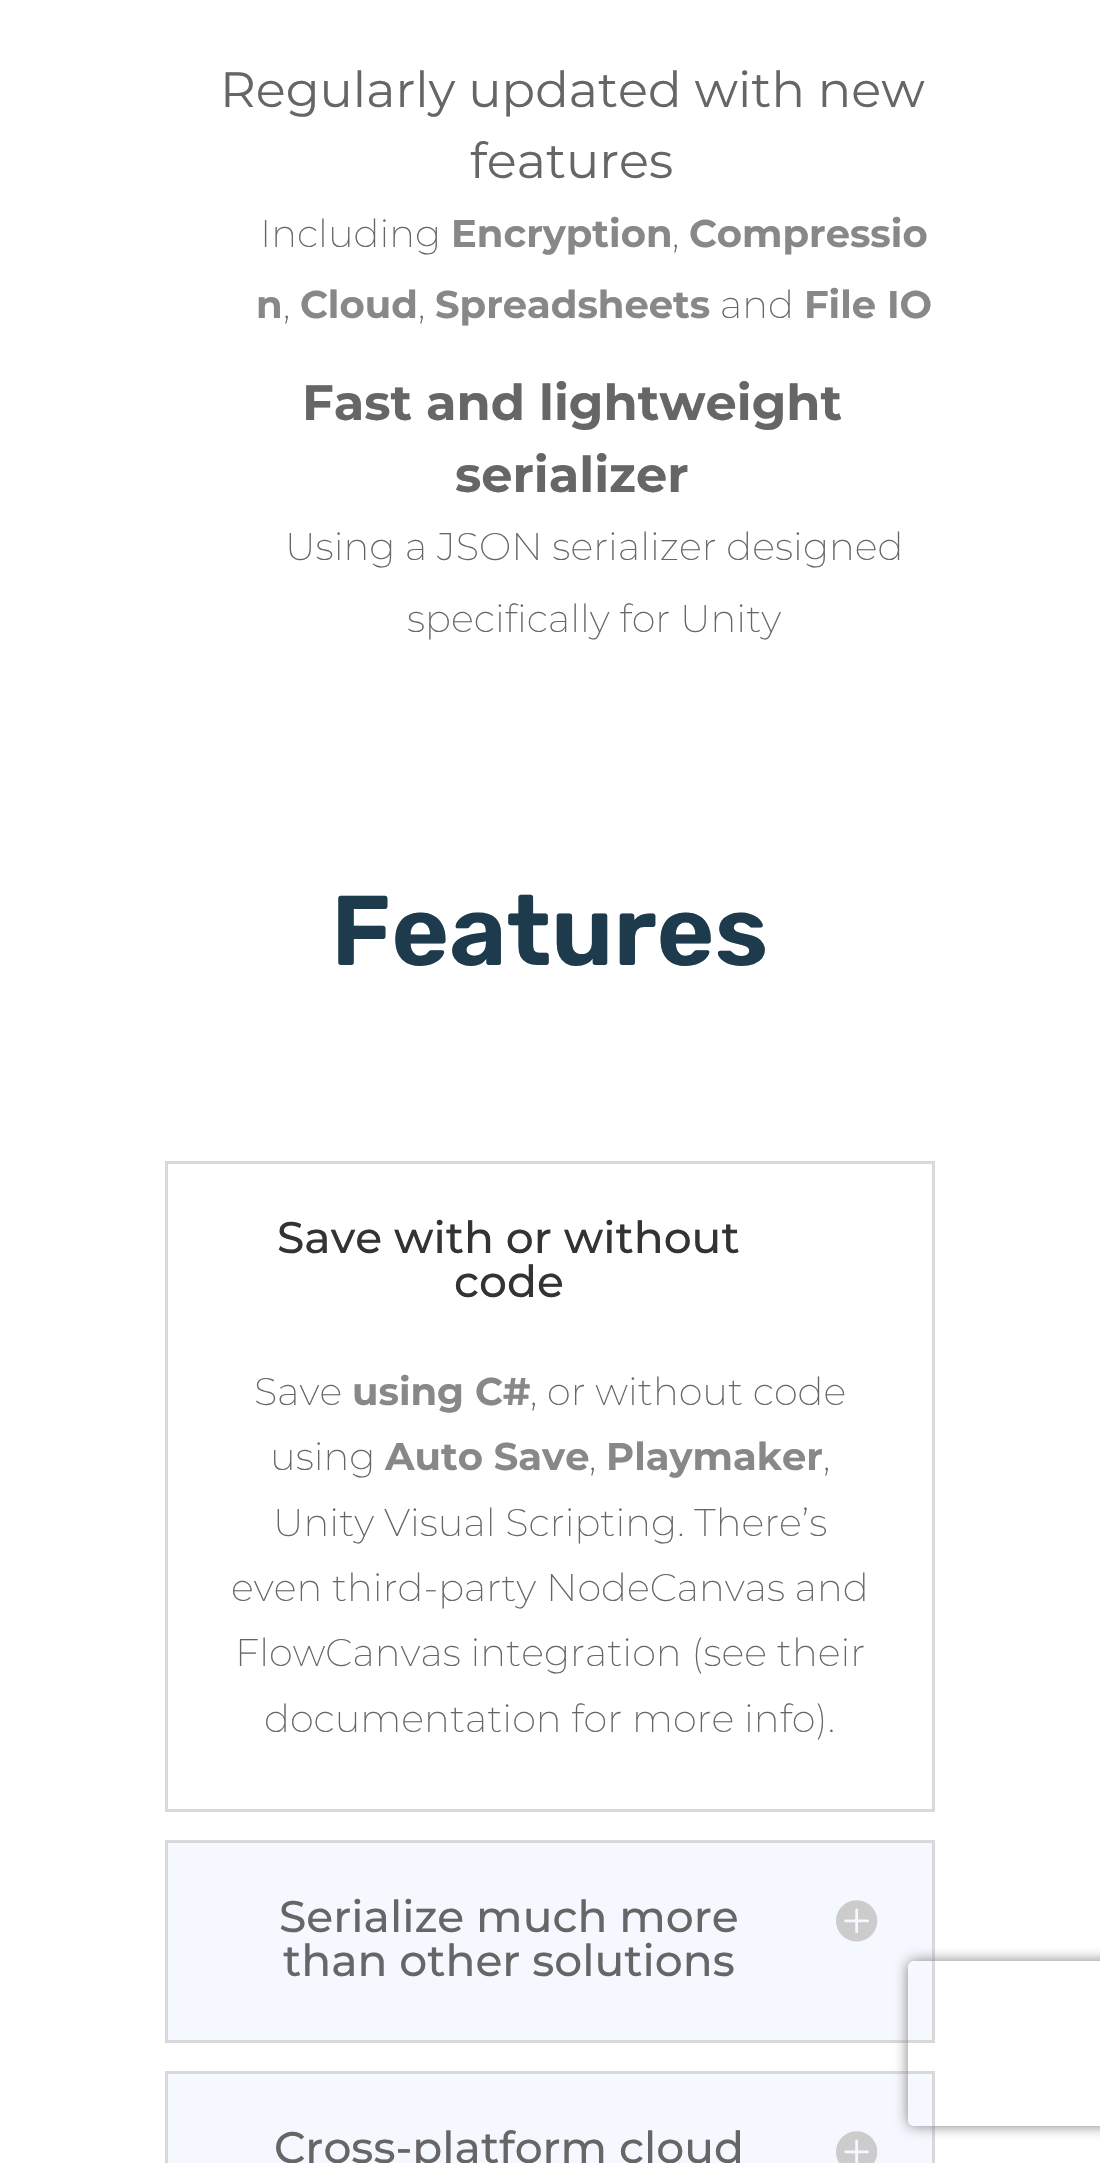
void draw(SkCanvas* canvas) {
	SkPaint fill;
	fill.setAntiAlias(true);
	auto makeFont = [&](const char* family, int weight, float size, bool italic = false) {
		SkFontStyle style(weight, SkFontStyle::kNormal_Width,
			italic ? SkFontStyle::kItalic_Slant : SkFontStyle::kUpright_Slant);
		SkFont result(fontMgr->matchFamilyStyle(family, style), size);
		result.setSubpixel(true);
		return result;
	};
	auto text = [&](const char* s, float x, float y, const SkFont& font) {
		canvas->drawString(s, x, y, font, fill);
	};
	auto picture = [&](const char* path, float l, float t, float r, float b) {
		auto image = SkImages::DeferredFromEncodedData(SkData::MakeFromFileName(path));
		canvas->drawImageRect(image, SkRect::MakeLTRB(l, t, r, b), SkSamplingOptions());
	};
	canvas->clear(0xFFFFFFFF);
	fill.setStyle(SkPaint::kStroke_Style);
	fill.setStrokeWidth(3);
	fill.setColor(0xFFD9D9D9);
	canvas->drawRect(SkRect::MakeLTRB(166.5f, 1162.5f, 933.5f, 1810.5f), fill);
	fill.setStyle(SkPaint::kFill_Style);
	fill.setColor(0xFFF6F8FF);
	canvas->drawRect(SkRect::MakeLTRB(166.5f, 1841.5f, 933.5f, 2041.5f), fill);
	fill.setStyle(SkPaint::kStroke_Style);
	fill.setColor(0xFFD9D9D9);
	canvas->drawRect(SkRect::MakeLTRB(166.5f, 1841.5f, 933.5f, 2041.5f), fill);
	picture("image0.png", 836, 1900, 878, 1942);
	fill.setStyle(SkPaint::kFill_Style);
	fill.setColor(0xFFF6F8FF);
	canvas->drawRect(SkRect::MakeLTRB(166.5f, 2072.5f, 933.5f, 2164.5f), fill);
	fill.setStyle(SkPaint::kStroke_Style);
	fill.setColor(0xFFD9D9D9);
	canvas->drawRect(SkRect::MakeLTRB(166.5f, 2072.5f, 933.5f, 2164.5f), fill);
	picture("image1.png", 836, 2131, 878, 2163);
	canvas->save();
	canvas->clipPath(SkPathBuilder(SkPathFillType::kEvenOdd).moveTo(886, 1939).lineTo(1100, 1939).lineTo(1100, 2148).lineTo(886, 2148).close().moveTo(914, 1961).lineTo(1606, 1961).cubicTo(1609.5f, 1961, 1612, 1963.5f, 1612, 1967).lineTo(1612, 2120).cubicTo(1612, 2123.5f, 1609.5f, 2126, 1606, 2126).lineTo(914, 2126).cubicTo(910.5f, 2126, 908, 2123.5f, 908, 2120).lineTo(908, 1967).cubicTo(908, 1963.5f, 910.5f, 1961, 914, 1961).close().detach(), true);
	fill.setStyle(SkPaint::kFill_Style);
	fill.setColor(0xFF808080);
	fill.setMaskFilter(SkMaskFilter::MakeBlur(kNormal_SkBlurStyle, 7));
	canvas->drawRoundRect(SkRect::MakeLTRB(908, 1961, 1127, 2126), 6, 6, fill);
	fill.setMaskFilter(nullptr);
	canvas->restore();
	auto font1 = makeFont("Montserrat", 400, 49.5f);
	fill.setColor(0xFF666666);
	text("Regularly updated with new", 220, 107, font1);
	text("features", 470, 178, font1);
	auto font2 = makeFont("Montserrat", 200, 38.5f);
	text("Including", 260, 247, font2);
	auto font3 = makeFont("Montserrat", 700, 38.5f);
	fill.setColor(0xFF888888);
	text("Encryption", 451, 247, font3);
	fill.setColor(0xFF666666);
	text(",", 672, 247, font2);
	fill.setColor(0xFF888888);
	text("Compressio", 689, 247, font3);
	text("n", 256, 318, font3);
	text("Cloud", 300, 318, font3);
	text("Spreadsheets", 435, 318, font3);
	fill.setColor(0xFF666666);
	text("and", 720, 318, font2);
	fill.setColor(0xFF888888);
	text("File IO", 804, 318, font3);
	fill.setColor(0xFF666666);
	text(",", 283, 318, font2);
	text(",", 418, 318, font2);
	auto font4 = makeFont("Montserrat", 700, 49.5f);
	text("Fast and lightweight", 302, 420, font4);
	text("serializer", 455, 492, font4);
	text("Using a JSON serializer designed", 285, 560, font2);
	text("specifically for Unity", 407, 632, font2);
	auto font5 = makeFont("Rubik", 600, 99);
	fill.setColor(0xFF1E3A4D);
	text("Features", 331, 965, font5);
	auto font6 = makeFont("Montserrat", 500, 44);
	fill.setColor(0xFF333333);
	text("Save with or without", 277, 1253, font6);
	text("code", 454, 1297, font6);
	fill.setColor(0xFF666666);
	text("Save", 254, 1405, font2);
	fill.setColor(0xFF888888);
	text("using C#", 352, 1405, font3);
	fill.setColor(0xFF666666);
	text(", or without code", 530, 1405, font2);
	text("using", 270, 1470, font2);
	fill.setColor(0xFF888888);
	text("Auto Save", 385, 1470, font3);
	fill.setColor(0xFF666666);
	text(",", 589, 1470, font2);
	fill.setColor(0xFF888888);
	text("Playmaker", 606, 1470, font3);
	fill.setColor(0xFF666666);
	text(",", 823, 1470, font2);
	text("Unity Visual Scripting. There’s", 273, 1536, font2);
	text("even third-party NodeCanvas and", 231, 1601, font2);
	text("FlowCanvas integration (see their", 235, 1666, font2);
	text("documentation for more info).", 264, 1732, font2);
	text("Serialize much more", 279, 1932, font6);
	text("than other solutions", 283, 1976, font6);
	text("Cross-platform cloud", 274, 2163, font6);
}
